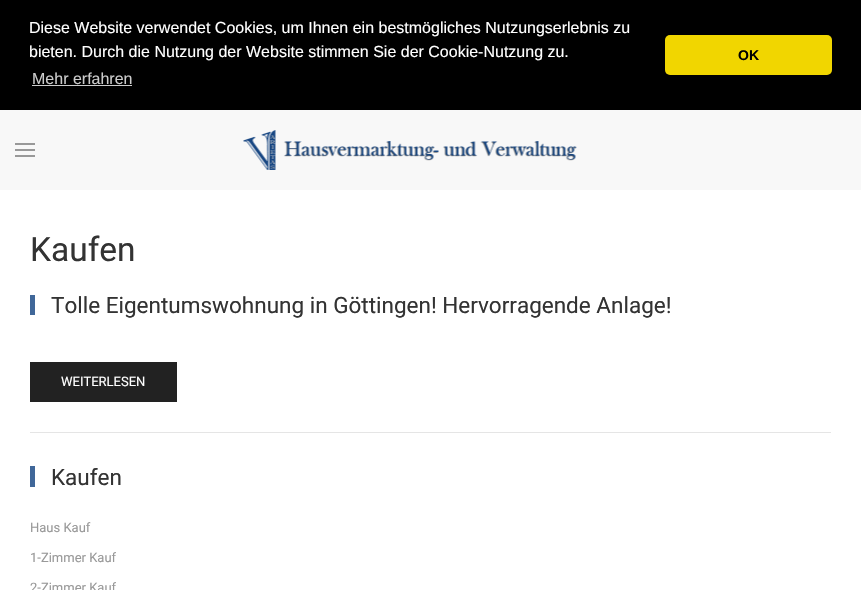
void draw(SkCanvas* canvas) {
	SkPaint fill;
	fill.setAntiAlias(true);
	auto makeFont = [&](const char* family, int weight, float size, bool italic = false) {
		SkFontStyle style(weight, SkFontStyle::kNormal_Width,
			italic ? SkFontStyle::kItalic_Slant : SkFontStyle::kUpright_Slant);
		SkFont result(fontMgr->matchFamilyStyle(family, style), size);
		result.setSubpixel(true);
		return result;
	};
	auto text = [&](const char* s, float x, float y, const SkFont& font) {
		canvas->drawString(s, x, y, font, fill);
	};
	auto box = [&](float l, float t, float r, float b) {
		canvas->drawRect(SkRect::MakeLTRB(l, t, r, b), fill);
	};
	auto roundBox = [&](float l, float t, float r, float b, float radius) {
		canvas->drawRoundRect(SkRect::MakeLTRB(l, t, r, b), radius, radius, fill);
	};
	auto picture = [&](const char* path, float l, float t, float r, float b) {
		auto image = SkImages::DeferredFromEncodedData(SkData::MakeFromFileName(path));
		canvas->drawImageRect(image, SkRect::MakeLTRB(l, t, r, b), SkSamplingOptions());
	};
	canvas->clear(0xFFFFFFFF);
	fill.setColor(0xFF000000);
	box(0, 0, 861, 110);
	fill.setColor(0xFFCCCCCC);
	box(32, 85, 132, 86);
	fill.setColor(0xFFF1D600);
	roundBox(665, 35, 832, 75, 5);
	fill.setColor(0xFFF8F8F8);
	box(0, 110, 861, 190);
	fill.setColor(0xFF999999);
	box(15, 143, 35, 145);
	box(15, 149, 35, 151);
	box(15, 155, 35, 157);
	picture("image0.png", 243, 130, 577, 170);
	fill.setColor(0xFF406799);
	box(30, 295, 35, 315);
	fill.setColor(0xFF222222);
	box(30, 362, 177, 402);
	fill.setColor(0xFFE5E5E5);
	box(30, 432, 831, 433);
	fill.setColor(0xFF406799);
	box(30, 466, 35, 487);
	auto font1 = makeFont("Liberation Sans", 400, 16);
	fill.setColor(0xFFFFFFFF);
	text("Diese Website verwendet Cookies, um Ihnen ein bestmögliches Nutzungserlebnis zu", 29, 33, font1);
	text("bieten. Durch die Nutzung der Website stimmen Sie der Cookie-Nutzung zu.", 29, 57, font1);
	fill.setColor(0xFFCCCCCC);
	text("Mehr erfahren", 32, 84, font1);
	auto font2 = makeFont("Liberation Sans", 700, 14);
	fill.setColor(0xFF000000);
	text("OK", 738, 60, font2);
	auto font3 = makeFont("Roboto", 400, 33.5f);
	fill.setColor(0xFF333333);
	text("Kaufen", 30, 261, font3);
	auto font4 = makeFont("Roboto", 400, 22.5f);
	text("Tolle Eigentumswohnung in Göttingen! Hervorragende Anlage!", 51, 313, font4);
	auto font5 = makeFont("Roboto", 400, 13);
	fill.setColor(0xFFFFFFFF);
	text("WEITERLESEN", 61, 386, font5);
	fill.setColor(0xFF333333);
	text("Kaufen", 51, 485, font4);
	fill.setColor(0xFF999999);
	text("Haus Kauf", 30, 532, font5);
	text("1-Zimmer Kauf", 30, 562, font5);
	text("2-Zimmer Kauf", 30, 592, font5);
}
